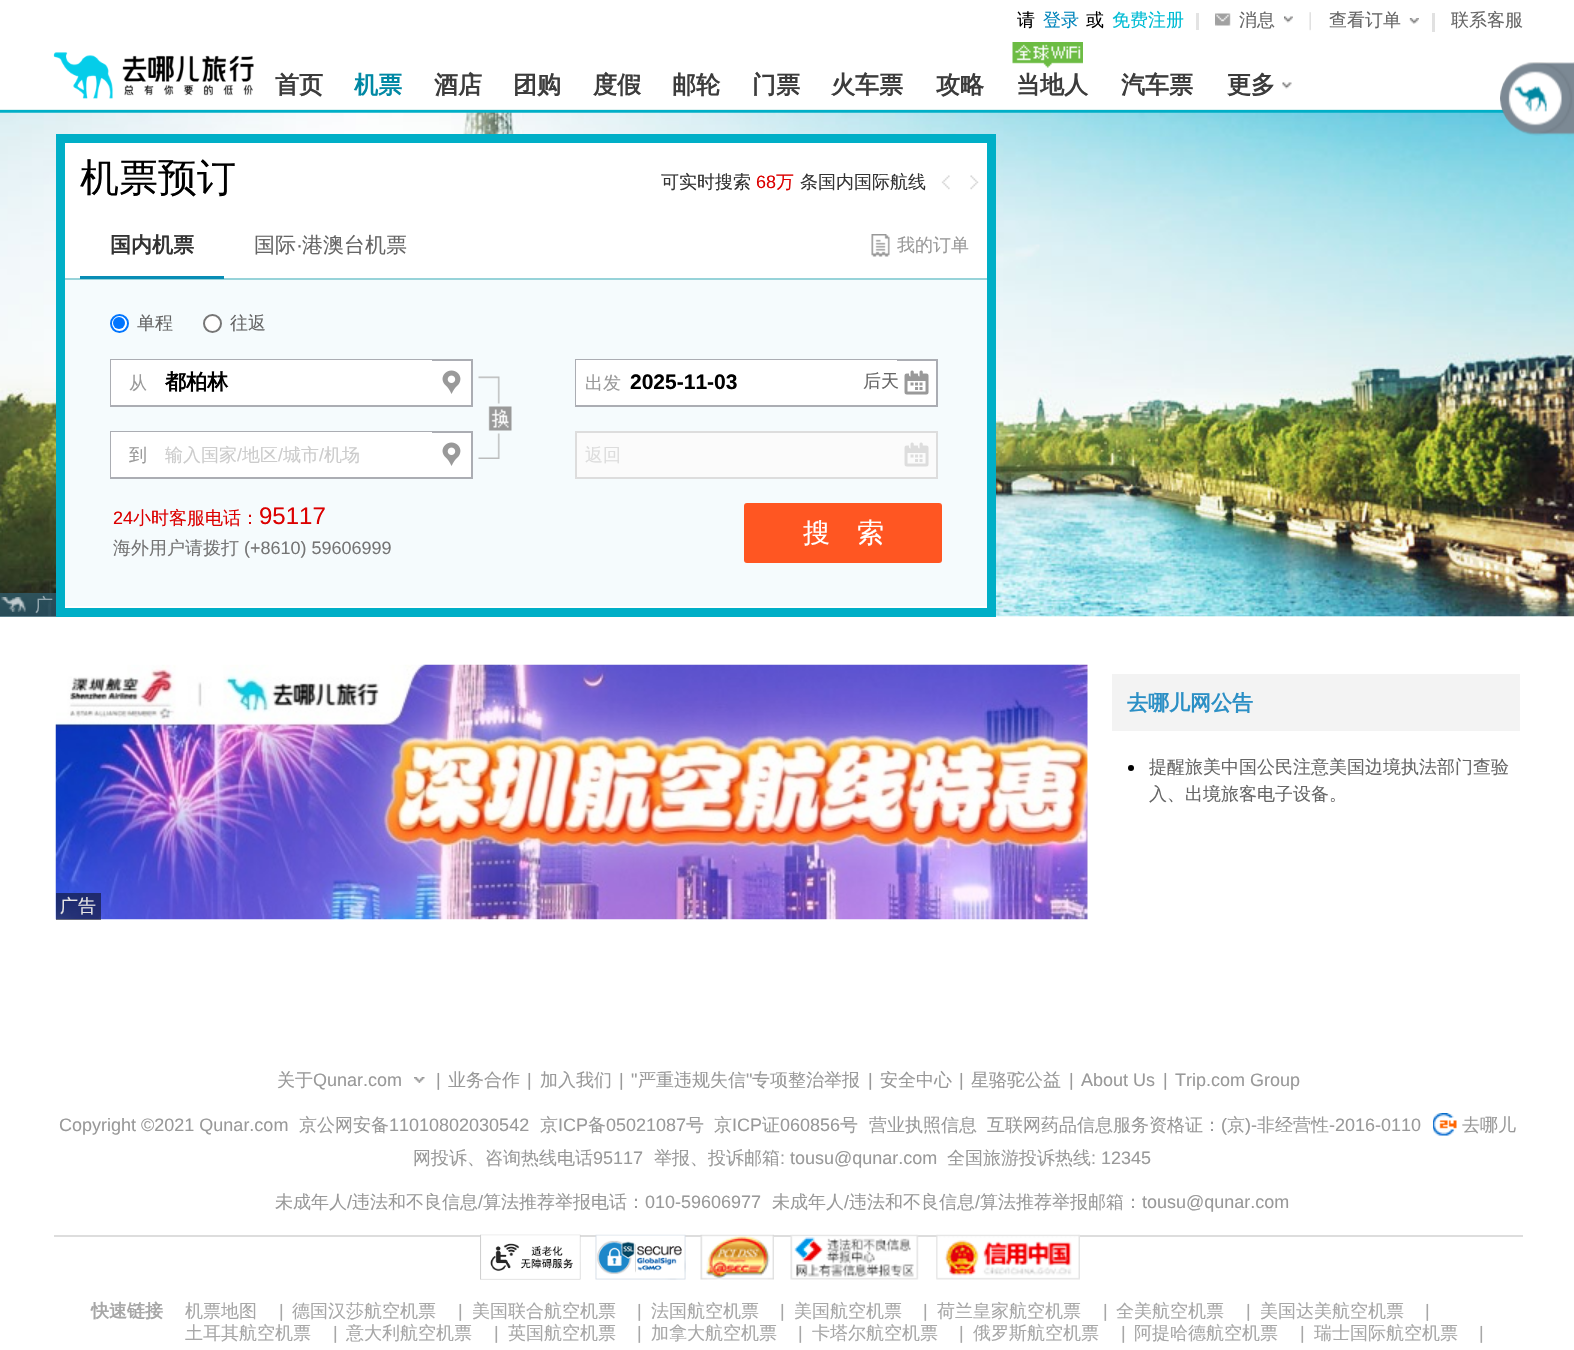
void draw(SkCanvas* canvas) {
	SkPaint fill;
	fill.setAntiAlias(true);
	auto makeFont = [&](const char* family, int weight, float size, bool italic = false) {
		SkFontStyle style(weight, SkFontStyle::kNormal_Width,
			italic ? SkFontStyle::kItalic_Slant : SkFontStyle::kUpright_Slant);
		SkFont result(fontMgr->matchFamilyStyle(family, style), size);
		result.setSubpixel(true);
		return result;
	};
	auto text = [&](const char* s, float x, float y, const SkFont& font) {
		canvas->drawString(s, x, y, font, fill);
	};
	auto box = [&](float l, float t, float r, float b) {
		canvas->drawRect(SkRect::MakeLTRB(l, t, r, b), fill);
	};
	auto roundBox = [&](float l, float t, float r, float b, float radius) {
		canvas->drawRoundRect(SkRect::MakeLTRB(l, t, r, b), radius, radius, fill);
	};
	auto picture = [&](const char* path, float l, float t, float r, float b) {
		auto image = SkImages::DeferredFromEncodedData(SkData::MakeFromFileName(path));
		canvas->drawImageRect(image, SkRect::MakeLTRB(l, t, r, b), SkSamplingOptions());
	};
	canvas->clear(0xFFFFFFFF);
	picture("image0.png", 0, 109, 1504, 110);
	fill.setColor(0xFFE3E3E3);
	box(1196, 13, 1199, 30);
	picture("image1.png", 1309, 12, 1311, 31);
	picture("image2.png", 1215, 13, 1231, 26);
	picture("image3.png", 1284, 16, 1293, 23);
	fill.setColor(0xFFE1E1E1);
	box(1432, 13, 1435, 32);
	picture("image4.png", 1409, 18, 1419, 24);
	picture("image5.png", 53, 52, 254, 99);
	picture("image6.png", 1012, 42, 1083, 68);
	picture("image7.png", 1282, 82, 1292, 89);
	fill.setColor(0xFF00AFC7);
	box(0, 110, 1505, 113);
	fill.setColor(0xFFFBFBFB);
	box(996, 616, 1520, 617);
	picture("image16.png", 0, 112, 1574, 617);
	picture("image8.png", 1500, 62, 1574, 136);
	fill.setColor(0xFFFFFFFF);
	canvas->drawRect(SkRect::MakeLTRB(60.5f, 138.5f, 991.5f, 612.5f), fill);
	fill.setStyle(SkPaint::kStroke_Style);
	fill.setStrokeWidth(9);
	fill.setColor(0xFF00AFC7);
	canvas->drawRect(SkRect::MakeLTRB(60.5f, 138.5f, 991.5f, 612.5f), fill);
	picture("image9.png", 941, 175, 950, 190);
	picture("image10.png", 970, 175, 979, 190);
	fill.setStyle(SkPaint::kFill_Style);
	fill.setColor(0xFF97D3D9);
	box(65, 278, 987, 280);
	fill.setColor(0xFF088DB5);
	box(80, 276, 224, 279);
	picture("image11.png", 871, 234, 890, 257);
	fill.setColor(0xFFF5FBFD);
	box(65, 280, 987, 606);
	fill.setColor(0xFFFFFFFF);
	canvas->drawCircle(119.5f, 323.5f, 8.5f, fill);
	fill.setStyle(SkPaint::kStroke_Style);
	fill.setStrokeWidth(2);
	fill.setColor(0xFF0075FF);
	canvas->drawCircle(119.5f, 323.5f, 8.5f, fill);
	fill.setStyle(SkPaint::kFill_Style);
	canvas->drawCircle(119, 323, 6, fill);
	fill.setColor(0xFFFFFFFF);
	canvas->drawCircle(212.5f, 323.5f, 8.5f, fill);
	fill.setStyle(SkPaint::kStroke_Style);
	fill.setColor(0xFF767676);
	canvas->drawCircle(212.5f, 323.5f, 8.5f, fill);
	fill.setStyle(SkPaint::kFill_Style);
	fill.setColor(0xFFFFFFFF);
	box(432, 361, 471, 405);
	fill.setStyle(SkPaint::kStroke_Style);
	fill.setColor(0xFFABADB3);
	canvas->drawRect(SkRect::MakeLTRB(111, 360, 472, 406), fill);
	picture("image12.png", 442, 370, 461, 394);
	fill.setStyle(SkPaint::kFill_Style);
	fill.setColor(0xFFFFFFFF);
	box(111, 360, 432, 405);
	picture("image13.png", 478, 376, 512, 459);
	box(432, 433, 471, 477);
	fill.setStyle(SkPaint::kStroke_Style);
	fill.setColor(0xFFABADB3);
	canvas->drawRect(SkRect::MakeLTRB(111, 432, 472, 478), fill);
	fill.setStyle(SkPaint::kFill_Style);
	fill.setColor(0xFFFFFFFF);
	box(111, 432, 432, 477);
	picture("image12.png", 442, 442, 461, 466);
	box(897, 361, 936, 405);
	fill.setStyle(SkPaint::kStroke_Style);
	fill.setColor(0xFFABADB3);
	canvas->drawRect(SkRect::MakeLTRB(576, 360, 937, 406), fill);
	picture("image14.png", 904, 370, 929, 395);
	fill.setStyle(SkPaint::kFill_Style);
	fill.setColor(0xFFFFFFFF);
	box(576, 360, 897, 405);
	fill.setColor(0xFFFBFBFB);
	canvas->drawRect(SkRect::MakeLTRB(576, 432, 937, 478), fill);
	fill.setStyle(SkPaint::kStroke_Style);
	fill.setColor(0xFFDDDDDD);
	canvas->drawRect(SkRect::MakeLTRB(576, 432, 937, 478), fill);
	picture("image15.png", 904, 442, 929, 467);
	fill.setStyle(SkPaint::kFill_Style);
	fill.setColor(0xFFFF5622);
	roundBox(744, 503, 942, 563, 3);
	fill.setColor(0xB32D5F72);
	box(0, 593, 56, 617);
	picture("image17.png", 1, 597, 26, 612);
	fill.setColor(0xFFF3F3F3);
	box(1112, 674, 1520, 731);
	fill.setColor(0xFF000000);
	canvas->drawCircle(1131, 768, 3, fill);
	picture("image18.png", 55, 664, 1088, 920);
	fill.setColor(0x80000000);
	box(56, 893, 101, 920);
	picture("image19.png", 414, 1077, 425, 1083);
	picture("image20.png", 1433, 1113, 1457, 1136);
	fill.setColor(0xFFDDDDDD);
	box(54, 1235, 1523, 1237);
	picture("image21.png", 480, 1234, 581, 1280);
	picture("image22.png", 595, 1234, 686, 1280);
	picture("image23.png", 700, 1234, 774, 1280);
	picture("image24.png", 790, 1234, 919, 1280);
	picture("image25.png", 936, 1234, 1080, 1280);
	auto font1 = makeFont("WenQuanYi Zen Hei", 500, 18);
	fill.setColor(0xFF000000);
	text("请", 1017, 26, font1);
	fill.setColor(0xFF0084BB);
	text("登录", 1043, 26, font1);
	fill.setColor(0xFF000000);
	text("或", 1086, 26, font1);
	fill.setColor(0xFF00BCD4);
	text("免费注册", 1112, 26, font1);
	fill.setColor(0xFF666666);
	text("消息", 1239, 26, font1);
	text("查看订单", 1329, 26, font1);
	text("联系客服", 1451, 26, font1);
	auto font2 = makeFont("WenQuanYi Zen Hei", 700, 24);
	fill.setColor(0xFF3C3C3C);
	text("首页", 275, 93, font2);
	fill.setColor(0xFF0088A4);
	text("机票", 354, 93, font2);
	fill.setColor(0xFF3C3C3C);
	text("酒店", 434, 93, font2);
	text("团购", 513, 93, font2);
	text("度假", 593, 93, font2);
	text("邮轮", 672, 93, font2);
	text("门票", 752, 93, font2);
	text("火车票", 831, 93, font2);
	text("攻略", 936, 93, font2);
	text("当地人", 1016, 93, font2);
	text("汽车票", 1121, 93, font2);
	text("更多", 1227, 93, font2);
	auto font3 = makeFont("WenQuanYi Zen Hei", 500, 39);
	fill.setColor(0xFF000000);
	text("机票预订", 80, 191, font3);
	fill.setColor(0xFF333333);
	text("可实时搜索", 661, 188, font1);
	auto font4 = makeFont("Liberation Sans", 400, 18);
	fill.setColor(0xFFDC0000);
	text("68", 756, 188, font4);
	text("万", 776, 188, font1);
	fill.setColor(0xFF333333);
	text("条国内国际航线", 800, 188, font1);
	auto font5 = makeFont("WenQuanYi Zen Hei", 700, 21);
	text("国内机票", 110, 252, font5);
	auto font6 = makeFont("WenQuanYi Zen Hei", 500, 21);
	fill.setColor(0xFF666666);
	text("国际", 254, 252, font6);
	auto font7 = makeFont("Liberation Sans", 400, 21);
	text("·", 296, 252, font7);
	text("港澳台机票", 302, 252, font6);
	fill.setColor(0xFF999999);
	text("我的订单", 897, 251, font1);
	fill.setColor(0xFF666666);
	text("单程", 137, 329, font1);
	text("往返", 230, 329, font1);
	fill.setColor(0xFF999999);
	text("从", 129, 389, font1);
	fill.setColor(0xFF000000);
	text("都柏林", 165, 389, font5);
	fill.setColor(0xFF999999);
	text("到", 129, 461, font1);
	fill.setColor(0xFFCCCCCC);
	text("输入国家", 165, 461, font1);
	text("/", 237, 461, font4);
	text("地区", 242, 461, font1);
	text("/", 278, 461, font4);
	text("城市", 283, 461, font1);
	text("/", 319, 461, font4);
	text("机场", 324, 461, font1);
	fill.setColor(0xFF999999);
	text("出发", 585, 389, font1);
	fill.setColor(0xFF666666);
	text("后天", 863, 387, font1);
	auto font8 = makeFont("Liberation Sans", 700, 21);
	fill.setColor(0xFF000000);
	text("2025-11-03", 630, 389, font8);
	fill.setColor(0xFFDDDDDD);
	text("返回", 585, 461, font1);
	auto font9 = makeFont("WenQuanYi Zen Hei", 500, 27);
	fill.setColor(0xFFFFFFFF);
	text("搜　索", 803, 542, font9);
	fill.setColor(0xFFDC0000);
	text("24", 113, 524, font4);
	text("小时客服电话：", 133, 524, font1);
	auto font10 = makeFont("Liberation Sans", 400, 24);
	text("95117", 259, 524, font10);
	fill.setColor(0xFF757575);
	text("海外用户请拨打", 113, 554, font1);
	text("(+8610) 59606999", 244, 554, font4);
	fill.setColor(0xFF95A8B0);
	text("广", 35, 611, font1);
	fill.setColor(0xFF2B8FC5);
	text("去哪儿网公告", 1127, 710, font5);
	fill.setColor(0xFF666666);
	text("提醒旅美中国公民注意美国边境执法部门查验", 1149, 773, font1);
	text("入、出境旅客电子设备。", 1149, 800, font1);
	fill.setColor(0xFFE6E5E5);
	text("广告", 60, 912, font1);
	fill.setColor(0xFF999999);
	text("关于", 277, 1086, font1);
	text("Qunar.com", 313, 1086, font4);
	text("|", 436, 1086, font4);
	text("业务合作", 448, 1086, font1);
	text("|", 527, 1086, font4);
	text("加入我们", 540, 1086, font1);
	text("|", 619, 1086, font4);
	text("\"", 631, 1086, font4);
	text("严重违规失信", 638, 1086, font1);
	text("\"", 746, 1086, font4);
	text("专项整治举报", 752, 1086, font1);
	text("|", 868, 1086, font4);
	text("安全中心", 880, 1086, font1);
	text("|", 959, 1086, font4);
	text("星骆驼公益", 971, 1086, font1);
	text("|", 1069, 1086, font4);
	text("About Us", 1081, 1086, font4);
	text("|", 1163, 1086, font4);
	text("Trip.com Group", 1175, 1086, font4);
	text("Copyright ©2021 Qunar.com", 59, 1131, font4);
	text("京公网安备", 299, 1131, font1);
	text("11010802030542", 389, 1131, font4);
	text("京", 540, 1131, font1);
	text("ICP", 558, 1131, font4);
	text("备", 588, 1131, font1);
	text("05021087", 606, 1131, font4);
	text("号", 686, 1131, font1);
	text("京", 714, 1131, font1);
	text("ICP", 732, 1131, font4);
	text("证", 762, 1131, font1);
	text("060856", 780, 1131, font4);
	text("号", 840, 1131, font1);
	text("营业执照信息", 869, 1131, font1);
	text("互联网药品信息服务资格证：", 987, 1131, font1);
	text("(", 1221, 1131, font4);
	text("京", 1227, 1131, font1);
	text(")-", 1245, 1131, font4);
	text("非经营性", 1257, 1131, font1);
	text("-2016-0110", 1329, 1131, font4);
	text("去哪儿", 1462, 1131, font1);
	text("网投诉、咨询热线电话", 413, 1164, font1);
	text("95117", 593, 1164, font4);
	text("举报、投诉邮箱", 654, 1164, font1);
	text(": tousu@qunar.com", 780, 1164, font4);
	text("全国旅游投诉热线", 947, 1164, font1);
	text(": 12345", 1091, 1164, font4);
	text("未成年人", 275, 1208, font1);
	text("/", 347, 1208, font4);
	text("违法和不良信息", 352, 1208, font1);
	text("/", 478, 1208, font4);
	text("算法推荐举报电话：", 483, 1208, font1);
	text("010-59606977", 645, 1208, font4);
	text("未成年人", 772, 1208, font1);
	text("/", 844, 1208, font4);
	text("违法和不良信息", 849, 1208, font1);
	text("/", 975, 1208, font4);
	text("算法推荐举报邮箱：", 980, 1208, font1);
	text("tousu@qunar.com", 1142, 1208, font4);
	auto font11 = makeFont("WenQuanYi Zen Hei", 700, 18);
	fill.setColor(0xFFA7A7A7);
	text("快速链接", 91, 1317, font11);
	text("机票地图", 185, 1317, font1);
	text("|", 279, 1317, font4);
	text("德国汉莎航空机票", 292, 1317, font1);
	text("|", 458, 1317, font4);
	text("美国联合航空机票", 472, 1317, font1);
	text("|", 637, 1317, font4);
	text("法国航空机票", 651, 1317, font1);
	text("|", 780, 1317, font4);
	text("美国航空机票", 794, 1317, font1);
	text("|", 923, 1317, font4);
	text("荷兰皇家航空机票", 937, 1317, font1);
	text("|", 1103, 1317, font4);
	text("全美航空机票", 1116, 1317, font1);
	text("|", 1246, 1317, font4);
	text("美国达美航空机票", 1260, 1317, font1);
	text("|", 1425, 1317, font4);
	text("土耳其航空机票", 185, 1339, font1);
	text("|", 333, 1339, font4);
	text("意大利航空机票", 346, 1339, font1);
	text("|", 494, 1339, font4);
	text("英国航空机票", 508, 1339, font1);
	text("|", 637, 1339, font4);
	text("加拿大航空机票", 651, 1339, font1);
	text("|", 798, 1339, font4);
	text("卡塔尔航空机票", 812, 1339, font1);
	text("|", 959, 1339, font4);
	text("俄罗斯航空机票", 973, 1339, font1);
	text("|", 1121, 1339, font4);
	text("阿提哈德航空机票", 1134, 1339, font1);
	text("|", 1300, 1339, font4);
	text("瑞士国际航空机票", 1314, 1339, font1);
	text("|", 1479, 1339, font4);
}
